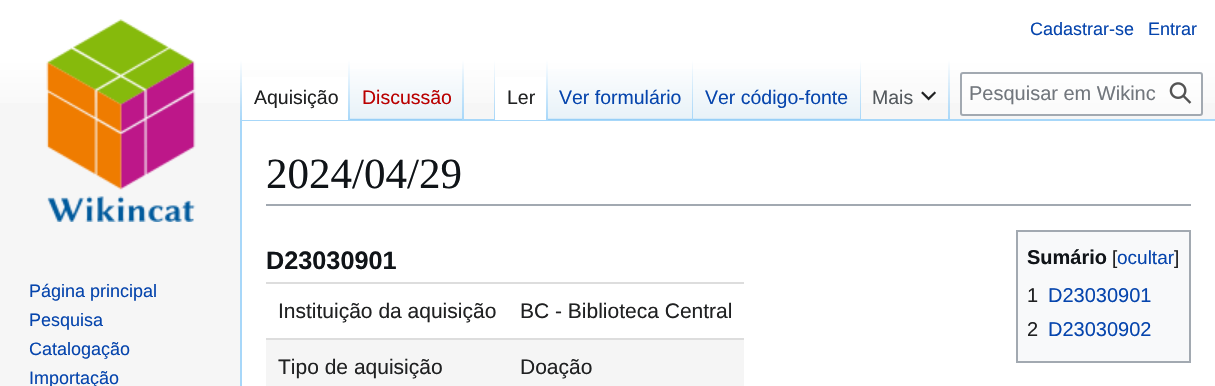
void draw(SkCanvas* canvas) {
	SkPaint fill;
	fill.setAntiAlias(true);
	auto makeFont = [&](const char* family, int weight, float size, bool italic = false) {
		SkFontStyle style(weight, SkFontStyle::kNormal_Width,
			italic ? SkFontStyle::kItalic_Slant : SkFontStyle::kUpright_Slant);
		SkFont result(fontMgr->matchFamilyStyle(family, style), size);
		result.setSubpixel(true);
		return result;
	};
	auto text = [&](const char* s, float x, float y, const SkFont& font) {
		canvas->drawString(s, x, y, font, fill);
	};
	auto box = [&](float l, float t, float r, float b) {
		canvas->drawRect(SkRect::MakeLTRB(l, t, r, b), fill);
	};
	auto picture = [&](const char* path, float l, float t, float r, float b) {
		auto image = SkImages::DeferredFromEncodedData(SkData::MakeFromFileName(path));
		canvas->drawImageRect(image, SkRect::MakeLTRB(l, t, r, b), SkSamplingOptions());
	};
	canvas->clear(0xFFF6F6F6);
	{
		const SkColor colors[] = {0xFFFFFFFF, 0xFFF6F6F6};
		const float stops[] = {0.5f, 1};
		const SkPoint ends[] = {{608, 0}, {608, 120}};
		fill.setShader(SkGradientShader::MakeLinear(ends, colors, stops, 2, SkTileMode::kClamp));
		fill.setAlpha(255);
	}
	box(0, 0, 1215, 103);
	fill.setShader(nullptr);
	fill.setColor(0xFFA7D7F9);
	box(240, 119, 1215, 121);
	box(240, 119, 242, 386);
	{
		const SkColor colors[] = {0x00A7D7F9, 0xFFA7D7F9};
		const float stops[] = {0, 1};
		const SkPoint ends[] = {{241, 60}, {241, 120}};
		fill.setShader(SkGradientShader::MakeLinear(ends, colors, stops, 2, SkTileMode::kClamp));
		fill.setAlpha(255);
	}
	box(240, 60, 242, 120);
	fill.setShader(nullptr);
	fill.setColor(0xFFFFFFFF);
	box(242, 77, 348, 120);
	{
		const SkColor colors[] = {0xFFFFFFFF, 0xFFA7D7F9};
		const float stops[] = {0, 1};
		const SkPoint ends[] = {{349, 60}, {349, 120}};
		fill.setShader(SkGradientShader::MakeLinear(ends, colors, stops, 2, SkTileMode::kClamp));
		fill.setAlpha(255);
	}
	box(348, 60, 350, 120);
	{
		const SkColor colors[] = {0xFF77C1F6, 0xFFE8F2F8, 0xFFFFFFFF};
		const float stops[] = {0, 0.03f, 1};
		const SkPoint ends[] = {{407, 120}, {407, 60}};
		fill.setShader(SkGradientShader::MakeLinear(ends, colors, stops, 3, SkTileMode::kClamp));
		fill.setAlpha(255);
	}
	box(350, 69, 464, 120);
	{
		const SkColor colors[] = {0x00A7D7F9, 0xFFA7D7F9};
		const float stops[] = {0, 1};
		const SkPoint ends[] = {{463, 60}, {463, 120}};
		fill.setShader(SkGradientShader::MakeLinear(ends, colors, stops, 2, SkTileMode::kClamp));
		fill.setAlpha(255);
	}
	box(462, 60, 464, 120);
	{
		const SkColor colors[] = {0x00A7D7F9, 0xFFA7D7F9};
		const float stops[] = {0, 1};
		const SkPoint ends[] = {{494, 60}, {494, 120}};
		fill.setShader(SkGradientShader::MakeLinear(ends, colors, stops, 2, SkTileMode::kClamp));
		fill.setAlpha(255);
	}
	box(494, 60, 495, 120);
	fill.setShader(nullptr);
	fill.setColor(0xFFFFFFFF);
	box(495, 77, 546, 120);
	{
		const SkColor colors[] = {0xFFFFFFFF, 0xFFA7D7F9};
		const float stops[] = {0, 1};
		const SkPoint ends[] = {{547, 60}, {547, 120}};
		fill.setShader(SkGradientShader::MakeLinear(ends, colors, stops, 2, SkTileMode::kClamp));
		fill.setAlpha(255);
	}
	box(546, 60, 548, 120);
	{
		const SkColor colors[] = {0xFF77C1F6, 0xFFE8F2F8, 0xFFFFFFFF};
		const float stops[] = {0, 0.03f, 1};
		const SkPoint ends[] = {{620, 120}, {620, 60}};
		fill.setShader(SkGradientShader::MakeLinear(ends, colors, stops, 3, SkTileMode::kClamp));
		fill.setAlpha(255);
	}
	box(548, 69, 693, 120);
	{
		const SkColor colors[] = {0x00A7D7F9, 0xFFA7D7F9};
		const float stops[] = {0, 1};
		const SkPoint ends[] = {{692, 60}, {692, 120}};
		fill.setShader(SkGradientShader::MakeLinear(ends, colors, stops, 2, SkTileMode::kClamp));
		fill.setAlpha(255);
	}
	box(692, 60, 693, 120);
	{
		const SkColor colors[] = {0xFF77C1F6, 0xFFE8F2F8, 0xFFFFFFFF};
		const float stops[] = {0, 0.03f, 1};
		const SkPoint ends[] = {{777, 120}, {777, 60}};
		fill.setShader(SkGradientShader::MakeLinear(ends, colors, stops, 3, SkTileMode::kClamp));
		fill.setAlpha(255);
	}
	box(693, 69, 861, 120);
	{
		const SkColor colors[] = {0x00A7D7F9, 0xFFA7D7F9};
		const float stops[] = {0, 1};
		const SkPoint ends[] = {{860, 60}, {860, 120}};
		fill.setShader(SkGradientShader::MakeLinear(ends, colors, stops, 2, SkTileMode::kClamp));
		fill.setAlpha(255);
	}
	box(860, 60, 861, 120);
	{
		const SkColor colors[] = {0x00A7D7F9, 0xFFA7D7F9};
		const float stops[] = {0, 1};
		const SkPoint ends[] = {{949, 60}, {949, 120}};
		fill.setShader(SkGradientShader::MakeLinear(ends, colors, stops, 2, SkTileMode::kClamp));
		fill.setAlpha(255);
	}
	box(948, 60, 950, 120);
	picture("image0.png", 921, 91, 936, 101);
	fill.setShader(nullptr);
	fill.setColor(0x80FFFFFF);
	canvas->drawRoundRect(SkRect::MakeLTRB(961, 73, 1202, 115), 2, 2, fill);
	fill.setStyle(SkPaint::kStroke_Style);
	fill.setStrokeWidth(2);
	fill.setColor(0xFFA2A9B1);
	canvas->drawRoundRect(SkRect::MakeLTRB(961, 73, 1202, 115), 2, 2, fill);
	picture("image1.png", 1169, 82, 1192, 104);
	picture("image2.png", 46, 19, 196, 222);
	fill.setStyle(SkPaint::kFill_Style);
	fill.setColor(0xFFFFFFFF);
	box(242, 121, 1215, 386);
	fill.setColor(0xFFA2A9B1);
	box(266, 204, 1191, 206);
	fill.setColor(0xFFF8F9FA);
	canvas->drawRect(SkRect::MakeLTRB(1017, 231, 1190, 362), fill);
	fill.setStyle(SkPaint::kStroke_Style);
	fill.setColor(0xFFA2A9B1);
	canvas->drawRect(SkRect::MakeLTRB(1017, 231, 1190, 362), fill);
	fill.setStyle(SkPaint::kFill_Style);
	fill.setColor(0xFFDDDDDD);
	box(266, 282, 744, 284);
	fill.setColor(0xFFF5F5F5);
	box(266, 340, 744, 386);
	fill.setColor(0xFFDDDDDD);
	box(266, 338, 744, 340);
	auto font1 = makeFont("Liberation Sans", 400, 18);
	fill.setColor(0xFF0645AD);
	text("Cadastrar-se", 1030, 35, font1);
	text("Entrar", 1148, 35, font1);
	auto font2 = makeFont("Liberation Sans", 400, 19.5f);
	fill.setColor(0xFF202122);
	text("Aquisição", 254, 104, font2);
	fill.setColor(0xFFBA0000);
	text("Discussão", 362, 104, font2);
	fill.setColor(0xFF202122);
	text("Ler", 507, 104, font2);
	fill.setColor(0xFF0645AD);
	text("Ver formulário", 559, 104, font2);
	text("Ver código-fonte", 705, 104, font2);
	fill.setColor(0xFF54595D);
	text("Mais", 872, 104, font2);
	auto font3 = makeFont("Liberation Sans", 400, 20);
	fill.setColor(0xFF72777D);
	text("Pesquisar em Wikinc", 969, 100, font3);
	fill.setColor(0xFF0645AD);
	text("Página principal", 29, 297, font1);
	text("Pesquisa", 29, 326, font1);
	text("Catalogação", 29, 355, font1);
	text("Importação", 29, 384, font1);
	auto font4 = makeFont("Liberation Serif", 400, 43);
	fill.setColor(0xFF101418);
	text("2024/04/29", 266, 188, font4);
	auto font5 = makeFont("Liberation Sans", 700, 25.25f);
	text("D23030901", 266, 269, font5);
	auto font6 = makeFont("Liberation Sans", 700, 20);
	text("Sumário", 1027, 264, font6);
	auto font7 = makeFont("Liberation Sans", 400, 19);
	fill.setColor(0xFF202122);
	text("[", 1112, 264, font7);
	fill.setColor(0xFF0645AD);
	text("ocultar", 1117, 264, font7);
	fill.setColor(0xFF202122);
	text("]", 1174, 264, font7);
	text("1", 1027, 302, font3);
	fill.setColor(0xFF0645AD);
	text("D23030901", 1048, 302, font3);
	fill.setColor(0xFF202122);
	text("2", 1027, 336, font3);
	fill.setColor(0xFF0645AD);
	text("D23030902", 1048, 336, font3);
	auto font8 = makeFont("Liberation Sans", 400, 21);
	fill.setColor(0xFF202122);
	text("Instituição da aquisição", 278, 318, font8);
	text("BC - Biblioteca Central", 520, 318, font8);
	text("Tipo de aquisição", 278, 374, font8);
	text("Doação", 520, 374, font8);
}
